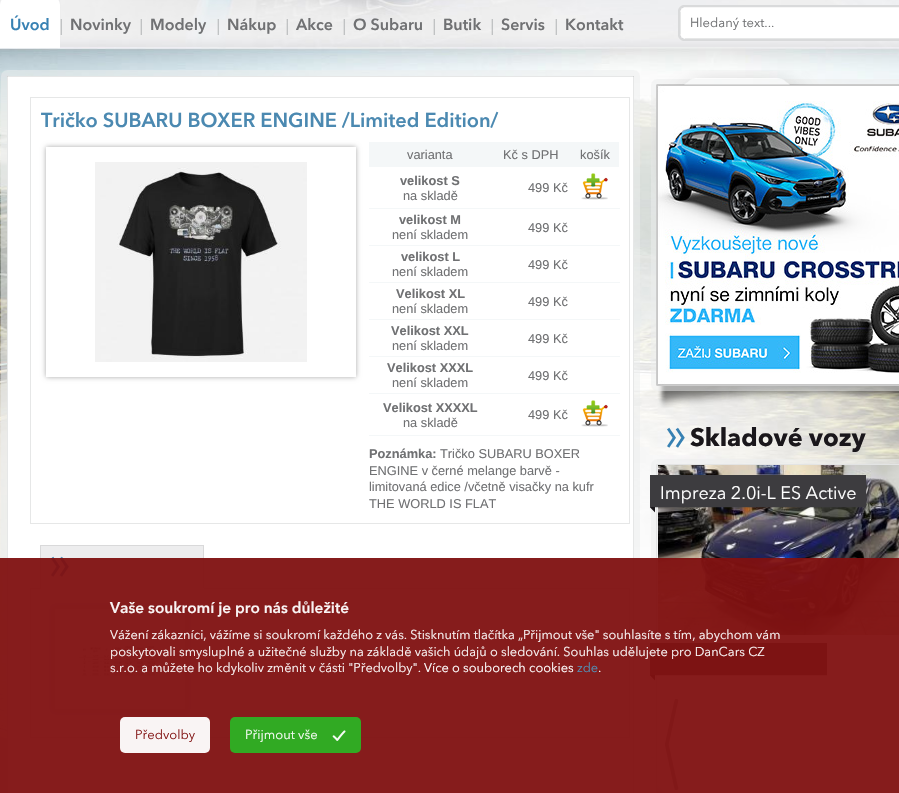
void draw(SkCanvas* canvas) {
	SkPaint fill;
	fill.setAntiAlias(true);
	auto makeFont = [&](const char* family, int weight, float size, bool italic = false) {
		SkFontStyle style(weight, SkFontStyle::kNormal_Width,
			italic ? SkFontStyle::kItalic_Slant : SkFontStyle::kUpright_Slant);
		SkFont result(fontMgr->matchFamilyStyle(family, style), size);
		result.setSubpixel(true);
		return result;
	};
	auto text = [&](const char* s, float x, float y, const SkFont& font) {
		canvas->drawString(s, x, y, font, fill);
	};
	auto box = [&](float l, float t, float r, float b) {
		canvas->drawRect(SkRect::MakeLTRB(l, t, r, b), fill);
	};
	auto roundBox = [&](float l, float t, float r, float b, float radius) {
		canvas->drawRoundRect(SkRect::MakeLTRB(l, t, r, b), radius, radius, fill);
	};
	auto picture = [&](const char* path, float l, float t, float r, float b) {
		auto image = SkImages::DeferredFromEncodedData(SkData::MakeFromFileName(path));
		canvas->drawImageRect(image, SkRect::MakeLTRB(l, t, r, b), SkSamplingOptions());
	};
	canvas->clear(0xFFFFFFFF);
	picture("image0.png", 0, 0, 899, 793);
	fill.setColor(0xFFE0E0E3);
	fill.setMaskFilter(SkMaskFilter::MakeBlur(kNormal_SkBlurStyle, 0.5f));
	canvas->drawRoundRect(SkRect::MakeLTRB(0, -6, 60, 47), 10, 10, fill);
	fill.setMaskFilter(nullptr);
	fill.setColor(0xFFFFFFFF);
	canvas->drawPath(SkPathBuilder().moveTo(10, -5).lineTo(50, -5).cubicTo(55.5f, -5, 60, -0.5f, 60, 5).lineTo(60, 48).lineTo(0, 48).lineTo(0, 5).cubicTo(0, -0.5f, 4.5f, -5, 10, -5).close().detach(), fill);
	picture("image1.png", 60, 19, 62, 35);
	picture("image2.png", 140, 19, 142, 35);
	picture("image3.png", 217, 19, 219, 35);
	picture("image4.png", 286, 19, 288, 35);
	picture("image5.png", 343, 19, 345, 35);
	picture("image6.png", 433, 19, 435, 35);
	picture("image7.png", 491, 19, 493, 35);
	picture("image8.png", 555, 19, 557, 35);
	picture("image9.png", 678, 5, 899, 41);
	picture("image10.png", 1, 70, 640, 77);
	picture("image11.png", 1, 77, 640, 793);
	fill.setStyle(SkPaint::kStroke_Style);
	fill.setStrokeWidth(1);
	fill.setColor(0xFFE6E7E7);
	canvas->drawRect(SkRect::MakeLTRB(30.5f, 97.5f, 629.5f, 523.5f), fill);
	canvas->save();
	canvas->clipPath(SkPathBuilder(SkPathFillType::kEvenOdd).moveTo(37, 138).lineTo(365, 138).lineTo(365, 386).lineTo(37, 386).close().moveTo(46, 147).lineTo(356, 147).lineTo(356, 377).lineTo(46, 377).close().detach(), true);
	fill.setStyle(SkPaint::kFill_Style);
	fill.setColor(0xFFAAAAAA);
	fill.setMaskFilter(SkMaskFilter::MakeBlur(kNormal_SkBlurStyle, 2.5f));
	canvas->drawRect(SkRect::MakeLTRB(46, 147, 356, 377), fill);
	fill.setMaskFilter(nullptr);
	canvas->restore();
	picture("image12.png", 95, 162, 307, 362);
	fill.setColor(0xFFF4F7F8);
	box(369, 142, 619, 167);
	box(369, 208, 620, 209);
	picture("image13.png", 581, 173, 608, 200);
	box(369, 245, 620, 246);
	box(369, 282, 620, 283);
	box(369, 319, 620, 320);
	box(369, 356, 620, 357);
	box(369, 393, 620, 394);
	box(369, 435, 620, 436);
	picture("image13.png", 581, 400, 608, 427);
	fill.setColor(0xFFEDEDEE);
	box(41, 546, 203, 588);
	fill.setColor(0xFFD9D9DA);
	box(40, 545, 204, 546);
	fill.setColor(0xFFEDEDEE);
	canvas->drawRect(SkRect::MakeLTRB(30.5f, 588.5f, 629.5f, 737.5f), fill);
	fill.setStyle(SkPaint::kStroke_Style);
	fill.setColor(0xFFD9D9DA);
	canvas->drawRect(SkRect::MakeLTRB(30.5f, 588.5f, 629.5f, 737.5f), fill);
	fill.setStyle(SkPaint::kFill_Style);
	box(203, 545, 204, 589);
	fill.setColor(0xFFEDEDEE);
	box(40, 588, 204, 589);
	fill.setColor(0xFFD9D9DA);
	box(40, 545, 41, 589);
	picture("image14.png", 51, 556, 69, 577);
	fill.setColor(0xFFDDDDDD);
	fill.setMaskFilter(SkMaskFilter::MakeBlur(kNormal_SkBlurStyle, 2.5f));
	canvas->drawRect(SkRect::MakeLTRB(55, 609, 185, 709), fill);
	fill.setMaskFilter(nullptr);
	fill.setColor(0xFFFFFFFF);
	box(55, 609, 185, 709);
	picture("image15.png", 78, 644, 158, 677);
	picture("image16.png", 651, 70, 899, 408);
	picture("image17.png", 657, 85, 899, 385);
	picture("image18.png", 667, 427, 685, 448);
	picture("image19.png", 651, 459, 899, 793);
	picture("image20.png", 658, 465, 899, 635);
	picture("image21.png", 650, 475, 866, 513);
	picture("image22.png", 650, 643, 827, 681);
	picture("image23.png", 665, 699, 679, 790);
	fill.setColor(0xF2801010);
	box(0, 558, 899, 793);
	fill.setColor(0xFFF9F4F4);
	roundBox(120, 717, 210, 753, 5);
	fill.setColor(0xFF31AA23);
	roundBox(230, 717, 361, 753, 5);
	picture("image24.png", 332, 730, 346, 741);
	auto font1 = makeFont("Avenir Next", 600, 16);
	fill.setColor(0xFF3781B3);
	text("Úvod", 10, 30, font1);
	fill.setColor(0xFF707173);
	text("Novinky", 70, 30, font1);
	text("Modely", 150, 30, font1);
	text("Nákup", 227, 30, font1);
	text("Akce", 296, 30, font1);
	text("O Subaru", 353, 30, font1);
	text("Butik", 443, 30, font1);
	text("Servis", 501, 30, font1);
	text("Kontakt", 565, 30, font1);
	auto font2 = makeFont("Avenir Next", 400, 13);
	text("Hledaný text...", 690, 27, font2);
	auto font3 = makeFont("Avenir Next", 600, 20);
	fill.setColor(0xFF4B89B1);
	text("Tričko SUBARU BOXER ENGINE /Limited Edition/", 41, 127, font3);
	auto font4 = makeFont("Liberation Sans", 400, 12.8f);
	fill.setColor(0xFF707173);
	text("varianta", 407, 159, font4);
	text("Kč s DPH", 503, 159, font4);
	text("košík", 580, 159, font4);
	auto font5 = makeFont("Liberation Sans", 700, 12.8f);
	text("velikost S", 400, 185, font5);
	text("na skladě", 403, 200, font4);
	text("499 Kč", 528, 192, font4);
	text("velikost M", 399, 224, font5);
	text("není skladem", 392, 239, font4);
	text("499 Kč", 528, 232, font4);
	text("velikost L", 401, 261, font5);
	text("není skladem", 392, 276, font4);
	text("499 Kč", 528, 269, font4);
	text("Velikost XL", 396, 298, font5);
	text("není skladem", 392, 313, font4);
	text("499 Kč", 528, 306, font4);
	text("Velikost XXL", 391, 335, font5);
	text("není skladem", 392, 350, font4);
	text("499 Kč", 528, 343, font4);
	text("Velikost XXXL", 387, 372, font5);
	text("není skladem", 392, 387, font4);
	text("499 Kč", 528, 380, font4);
	text("Velikost XXXXL", 383, 412, font5);
	text("na skladě", 403, 427, font4);
	text("499 Kč", 528, 419, font4);
	text("Poznámka:", 369, 458, font5);
	text("Tričko SUBARU BOXER", 440, 458, font4);
	text("ENGINE v černé melange barvě -", 369, 475, font4);
	text("limitovaná edice /včetně visačky na kufr", 369, 491, font4);
	text("THE WORLD IS FLAT", 369, 508, font4);
	auto font6 = makeFont("Avenir Next", 700, 25);
	fill.setColor(0xFF1A171B);
	text("Skladové vozy", 690, 446, font6);
	auto font7 = makeFont("Avenir Next", 400, 18);
	fill.setColor(0xFFFFFFFF);
	text("Impreza 2.0i-L ES Active", 660, 499, font7);
	auto font8 = makeFont("Avenir Next", 600, 15.4f);
	fill.setColor(0xFFF9F4F4);
	text("Vaše soukromí je pro nás důležité", 110, 613, font8);
	auto font9 = makeFont("Avenir Next", 400, 12.8f);
	text("Vážení zákazníci, vážíme si soukromí každého z vás. Stisknutím tlačítka „Přijmout vše\" souhlasíte s tím, abychom vám", 110, 639, font9);
	text("poskytovali smysluplné a užitečné služby na základě vašich údajů o sledování. Souhlas udělujete pro DanCars CZ", 110, 656, font9);
	text("s.r.o. a můžete ho kdykoliv změnit v části \"Předvolby\".", 110, 672, font9);
	fill.setColor(0xFFFFFFFF);
	text("Více o souborech cookies", 424, 672, font9);
	fill.setColor(0xFF538EB4);
	text("zde", 577, 672, font9);
	fill.setColor(0xFFFFFFFF);
	text(".", 598, 672, font9);
	fill.setColor(0xFF861B1B);
	text("Předvolby", 135, 739, font2);
	fill.setColor(0xFFF5FBF4);
	text("Přijmout vše", 245, 739, font2);
}
